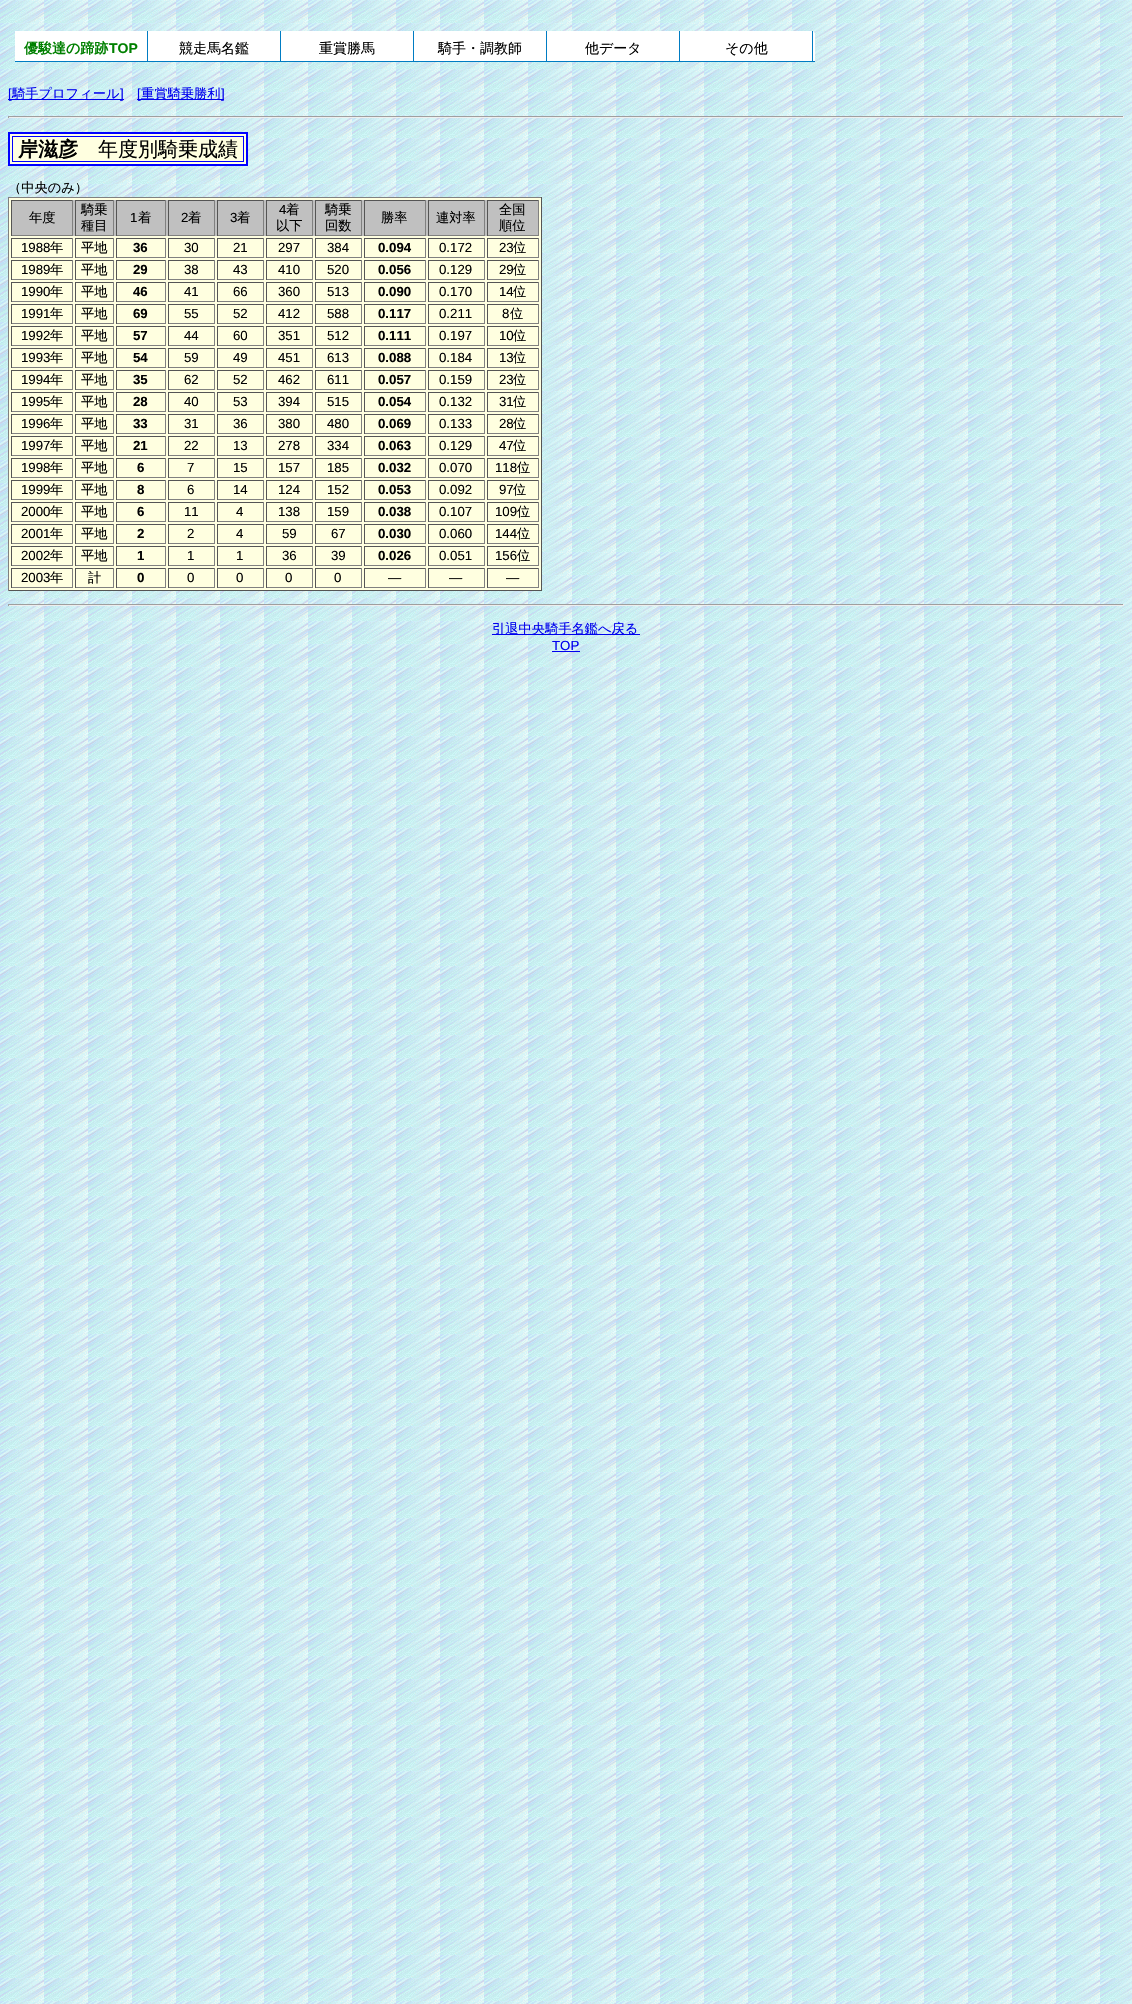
void draw(SkCanvas* canvas) {
	SkPaint fill;
	fill.setAntiAlias(true);
	auto makeFont = [&](const char* family, int weight, float size, bool italic = false) {
		SkFontStyle style(weight, SkFontStyle::kNormal_Width,
			italic ? SkFontStyle::kItalic_Slant : SkFontStyle::kUpright_Slant);
		SkFont result(fontMgr->matchFamilyStyle(family, style), size);
		result.setSubpixel(true);
		return result;
	};
	auto text = [&](const char* s, float x, float y, const SkFont& font) {
		canvas->drawString(s, x, y, font, fill);
	};
	auto box = [&](float l, float t, float r, float b) {
		canvas->drawRect(SkRect::MakeLTRB(l, t, r, b), fill);
	};
	auto picture = [&](const char* path, float l, float t, float r, float b) {
		auto image = SkImages::DeferredFromEncodedData(SkData::MakeFromFileName(path));
		canvas->drawImageRect(image, SkRect::MakeLTRB(l, t, r, b), SkSamplingOptions());
	};
	canvas->clear(0xFFFFFFFF);
	picture("image0.png", 0, 0, 1132, 2004);
	fill.setColor(0xFFFFFFFF);
	canvas->drawPath(SkPathBuilder().moveTo(18, 31).lineTo(812, 31).cubicTo(813.5f, 31, 815, 32.5f, 815, 34).lineTo(815, 62).lineTo(15, 62).lineTo(15, 34).cubicTo(15, 32.5f, 16.5f, 31, 18, 31).close().detach(), fill);
	fill.setColor(0xFF007CC3);
	box(15, 61, 815, 62);
	box(147, 31, 148, 61);
	fill.setColor(0xFFFFFFFF);
	box(15, 31, 18, 34);
	fill.setColor(0xFF007CC3);
	box(280, 31, 281, 61);
	box(413, 31, 414, 61);
	box(546, 31, 547, 61);
	box(679, 31, 680, 61);
	box(812, 31, 813, 61);
	fill.setColor(0xFF0000EE);
	box(8, 99, 124, 100);
	box(137, 99, 224, 100);
	fill.setColor(0xFF9F9F9F);
	box(8, 116, 1124, 117);
	fill.setColor(0xFFEEEEEE);
	box(1123, 116, 1124, 118);
	box(8, 117, 1124, 118);
	fill.setColor(0xFF9F9F9F);
	box(8, 116, 9, 118);
	fill.setColor(0xFFFFFFE0);
	canvas->drawRect(SkRect::MakeLTRB(9, 133, 247, 165), fill);
	fill.setStyle(SkPaint::kStroke_Style);
	fill.setStrokeWidth(2);
	fill.setColor(0xFF0000FF);
	canvas->drawRect(SkRect::MakeLTRB(9, 133, 247, 165), fill);
	fill.setStrokeWidth(1);
	canvas->drawRect(SkRect::MakeLTRB(12.5f, 136.5f, 243.5f, 161.5f), fill);
	fill.setStyle(SkPaint::kFill_Style);
	fill.setColor(0xFFFFFFE0);
	box(9, 198, 541, 590);
	fill.setColor(0xFF808080);
	box(8, 197, 542, 198);
	fill.setColor(0xFF555555);
	box(541, 197, 542, 591);
	box(8, 590, 542, 591);
	fill.setColor(0xFF808080);
	box(8, 197, 9, 591);
	fill.setColor(0xFFC0C0C0);
	box(12, 200, 538, 236);
	fill.setColor(0xFF555555);
	box(11, 200, 73, 201);
	fill.setColor(0xFF808080);
	box(72, 200, 73, 236);
	box(11, 235, 73, 236);
	fill.setColor(0xFF555555);
	box(11, 200, 12, 236);
	box(75, 200, 114, 201);
	fill.setColor(0xFF808080);
	box(113, 200, 114, 236);
	box(75, 235, 114, 236);
	fill.setColor(0xFF555555);
	box(75, 200, 76, 236);
	box(116, 200, 166, 201);
	fill.setColor(0xFF808080);
	box(165, 200, 166, 236);
	box(116, 235, 166, 236);
	fill.setColor(0xFF555555);
	box(116, 200, 117, 236);
	box(168, 200, 215, 201);
	fill.setColor(0xFF808080);
	box(214, 200, 215, 236);
	box(168, 235, 215, 236);
	fill.setColor(0xFF555555);
	box(168, 200, 169, 236);
	box(217, 200, 264, 201);
	fill.setColor(0xFF808080);
	box(263, 200, 264, 236);
	box(217, 235, 264, 236);
	fill.setColor(0xFF555555);
	box(217, 200, 218, 236);
	box(266, 200, 313, 201);
	fill.setColor(0xFF808080);
	box(312, 200, 313, 236);
	box(266, 235, 313, 236);
	fill.setColor(0xFF555555);
	box(266, 200, 267, 236);
	box(315, 200, 362, 201);
	fill.setColor(0xFF808080);
	box(361, 200, 362, 236);
	box(315, 235, 362, 236);
	fill.setColor(0xFF555555);
	box(315, 200, 316, 236);
	box(364, 200, 426, 201);
	fill.setColor(0xFF808080);
	box(425, 200, 426, 236);
	box(364, 235, 426, 236);
	fill.setColor(0xFF555555);
	box(364, 200, 365, 236);
	box(428, 200, 485, 201);
	fill.setColor(0xFF808080);
	box(484, 200, 485, 236);
	box(428, 235, 485, 236);
	fill.setColor(0xFF555555);
	box(428, 200, 429, 236);
	box(487, 200, 539, 201);
	fill.setColor(0xFF808080);
	box(538, 200, 539, 236);
	box(487, 235, 539, 236);
	fill.setColor(0xFF555555);
	box(487, 200, 488, 236);
	box(11, 238, 73, 239);
	fill.setColor(0xFF808080);
	box(72, 238, 73, 258);
	box(11, 257, 73, 258);
	fill.setColor(0xFF555555);
	box(11, 238, 12, 258);
	box(75, 238, 114, 239);
	fill.setColor(0xFF808080);
	box(113, 238, 114, 258);
	box(75, 257, 114, 258);
	fill.setColor(0xFF555555);
	box(75, 238, 76, 258);
	box(116, 238, 166, 239);
	fill.setColor(0xFF808080);
	box(165, 238, 166, 258);
	box(116, 257, 166, 258);
	fill.setColor(0xFF555555);
	box(116, 238, 117, 258);
	box(168, 238, 215, 239);
	fill.setColor(0xFF808080);
	box(214, 238, 215, 258);
	box(168, 257, 215, 258);
	fill.setColor(0xFF555555);
	box(168, 238, 169, 258);
	box(217, 238, 264, 239);
	fill.setColor(0xFF808080);
	box(263, 238, 264, 258);
	box(217, 257, 264, 258);
	fill.setColor(0xFF555555);
	box(217, 238, 218, 258);
	box(266, 238, 313, 239);
	fill.setColor(0xFF808080);
	box(312, 238, 313, 258);
	box(266, 257, 313, 258);
	fill.setColor(0xFF555555);
	box(266, 238, 267, 258);
	box(315, 238, 362, 239);
	fill.setColor(0xFF808080);
	box(361, 238, 362, 258);
	box(315, 257, 362, 258);
	fill.setColor(0xFF555555);
	box(315, 238, 316, 258);
	box(364, 238, 426, 239);
	fill.setColor(0xFF808080);
	box(425, 238, 426, 258);
	box(364, 257, 426, 258);
	fill.setColor(0xFF555555);
	box(364, 238, 365, 258);
	box(428, 238, 485, 239);
	fill.setColor(0xFF808080);
	box(484, 238, 485, 258);
	box(428, 257, 485, 258);
	fill.setColor(0xFF555555);
	box(428, 238, 429, 258);
	box(487, 238, 539, 239);
	fill.setColor(0xFF808080);
	box(538, 238, 539, 258);
	box(487, 257, 539, 258);
	fill.setColor(0xFF555555);
	box(487, 238, 488, 258);
	box(11, 260, 73, 261);
	fill.setColor(0xFF808080);
	box(72, 260, 73, 280);
	box(11, 279, 73, 280);
	fill.setColor(0xFF555555);
	box(11, 260, 12, 280);
	box(75, 260, 114, 261);
	fill.setColor(0xFF808080);
	box(113, 260, 114, 280);
	box(75, 279, 114, 280);
	fill.setColor(0xFF555555);
	box(75, 260, 76, 280);
	box(116, 260, 166, 261);
	fill.setColor(0xFF808080);
	box(165, 260, 166, 280);
	box(116, 279, 166, 280);
	fill.setColor(0xFF555555);
	box(116, 260, 117, 280);
	box(168, 260, 215, 261);
	fill.setColor(0xFF808080);
	box(214, 260, 215, 280);
	box(168, 279, 215, 280);
	fill.setColor(0xFF555555);
	box(168, 260, 169, 280);
	box(217, 260, 264, 261);
	fill.setColor(0xFF808080);
	box(263, 260, 264, 280);
	box(217, 279, 264, 280);
	fill.setColor(0xFF555555);
	box(217, 260, 218, 280);
	box(266, 260, 313, 261);
	fill.setColor(0xFF808080);
	box(312, 260, 313, 280);
	box(266, 279, 313, 280);
	fill.setColor(0xFF555555);
	box(266, 260, 267, 280);
	box(315, 260, 362, 261);
	fill.setColor(0xFF808080);
	box(361, 260, 362, 280);
	box(315, 279, 362, 280);
	fill.setColor(0xFF555555);
	box(315, 260, 316, 280);
	box(364, 260, 426, 261);
	fill.setColor(0xFF808080);
	box(425, 260, 426, 280);
	box(364, 279, 426, 280);
	fill.setColor(0xFF555555);
	box(364, 260, 365, 280);
	box(428, 260, 485, 261);
	fill.setColor(0xFF808080);
	box(484, 260, 485, 280);
	box(428, 279, 485, 280);
	fill.setColor(0xFF555555);
	box(428, 260, 429, 280);
	box(487, 260, 539, 261);
	fill.setColor(0xFF808080);
	box(538, 260, 539, 280);
	box(487, 279, 539, 280);
	fill.setColor(0xFF555555);
	box(487, 260, 488, 280);
	box(11, 282, 73, 283);
	fill.setColor(0xFF808080);
	box(72, 282, 73, 302);
	box(11, 301, 73, 302);
	fill.setColor(0xFF555555);
	box(11, 282, 12, 302);
	box(75, 282, 114, 283);
	fill.setColor(0xFF808080);
	box(113, 282, 114, 302);
	box(75, 301, 114, 302);
	fill.setColor(0xFF555555);
	box(75, 282, 76, 302);
	box(116, 282, 166, 283);
	fill.setColor(0xFF808080);
	box(165, 282, 166, 302);
	box(116, 301, 166, 302);
	fill.setColor(0xFF555555);
	box(116, 282, 117, 302);
	box(168, 282, 215, 283);
	fill.setColor(0xFF808080);
	box(214, 282, 215, 302);
	box(168, 301, 215, 302);
	fill.setColor(0xFF555555);
	box(168, 282, 169, 302);
	box(217, 282, 264, 283);
	fill.setColor(0xFF808080);
	box(263, 282, 264, 302);
	box(217, 301, 264, 302);
	fill.setColor(0xFF555555);
	box(217, 282, 218, 302);
	box(266, 282, 313, 283);
	fill.setColor(0xFF808080);
	box(312, 282, 313, 302);
	box(266, 301, 313, 302);
	fill.setColor(0xFF555555);
	box(266, 282, 267, 302);
	box(315, 282, 362, 283);
	fill.setColor(0xFF808080);
	box(361, 282, 362, 302);
	box(315, 301, 362, 302);
	fill.setColor(0xFF555555);
	box(315, 282, 316, 302);
	box(364, 282, 426, 283);
	fill.setColor(0xFF808080);
	box(425, 282, 426, 302);
	box(364, 301, 426, 302);
	fill.setColor(0xFF555555);
	box(364, 282, 365, 302);
	box(428, 282, 485, 283);
	fill.setColor(0xFF808080);
	box(484, 282, 485, 302);
	box(428, 301, 485, 302);
	fill.setColor(0xFF555555);
	box(428, 282, 429, 302);
	box(487, 282, 539, 283);
	fill.setColor(0xFF808080);
	box(538, 282, 539, 302);
	box(487, 301, 539, 302);
	fill.setColor(0xFF555555);
	box(487, 282, 488, 302);
	box(11, 304, 73, 305);
	fill.setColor(0xFF808080);
	box(72, 304, 73, 324);
	box(11, 323, 73, 324);
	fill.setColor(0xFF555555);
	box(11, 304, 12, 324);
	box(75, 304, 114, 305);
	fill.setColor(0xFF808080);
	box(113, 304, 114, 324);
	box(75, 323, 114, 324);
	fill.setColor(0xFF555555);
	box(75, 304, 76, 324);
	box(116, 304, 166, 305);
	fill.setColor(0xFF808080);
	box(165, 304, 166, 324);
	box(116, 323, 166, 324);
	fill.setColor(0xFF555555);
	box(116, 304, 117, 324);
	box(168, 304, 215, 305);
	fill.setColor(0xFF808080);
	box(214, 304, 215, 324);
	box(168, 323, 215, 324);
	fill.setColor(0xFF555555);
	box(168, 304, 169, 324);
	box(217, 304, 264, 305);
	fill.setColor(0xFF808080);
	box(263, 304, 264, 324);
	box(217, 323, 264, 324);
	fill.setColor(0xFF555555);
	box(217, 304, 218, 324);
	box(266, 304, 313, 305);
	fill.setColor(0xFF808080);
	box(312, 304, 313, 324);
	box(266, 323, 313, 324);
	fill.setColor(0xFF555555);
	box(266, 304, 267, 324);
	box(315, 304, 362, 305);
	fill.setColor(0xFF808080);
	box(361, 304, 362, 324);
	box(315, 323, 362, 324);
	fill.setColor(0xFF555555);
	box(315, 304, 316, 324);
	box(364, 304, 426, 305);
	fill.setColor(0xFF808080);
	box(425, 304, 426, 324);
	box(364, 323, 426, 324);
	fill.setColor(0xFF555555);
	box(364, 304, 365, 324);
	box(428, 304, 485, 305);
	fill.setColor(0xFF808080);
	box(484, 304, 485, 324);
	box(428, 323, 485, 324);
	fill.setColor(0xFF555555);
	box(428, 304, 429, 324);
	box(487, 304, 539, 305);
	fill.setColor(0xFF808080);
	box(538, 304, 539, 324);
	box(487, 323, 539, 324);
	fill.setColor(0xFF555555);
	box(487, 304, 488, 324);
	box(11, 326, 73, 327);
	fill.setColor(0xFF808080);
	box(72, 326, 73, 346);
	box(11, 345, 73, 346);
	fill.setColor(0xFF555555);
	box(11, 326, 12, 346);
	box(75, 326, 114, 327);
	fill.setColor(0xFF808080);
	box(113, 326, 114, 346);
	box(75, 345, 114, 346);
	fill.setColor(0xFF555555);
	box(75, 326, 76, 346);
	box(116, 326, 166, 327);
	fill.setColor(0xFF808080);
	box(165, 326, 166, 346);
	box(116, 345, 166, 346);
	fill.setColor(0xFF555555);
	box(116, 326, 117, 346);
	box(168, 326, 215, 327);
	fill.setColor(0xFF808080);
	box(214, 326, 215, 346);
	box(168, 345, 215, 346);
	fill.setColor(0xFF555555);
	box(168, 326, 169, 346);
	box(217, 326, 264, 327);
	fill.setColor(0xFF808080);
	box(263, 326, 264, 346);
	box(217, 345, 264, 346);
	fill.setColor(0xFF555555);
	box(217, 326, 218, 346);
	box(266, 326, 313, 327);
	fill.setColor(0xFF808080);
	box(312, 326, 313, 346);
	box(266, 345, 313, 346);
	fill.setColor(0xFF555555);
	box(266, 326, 267, 346);
	box(315, 326, 362, 327);
	fill.setColor(0xFF808080);
	box(361, 326, 362, 346);
	box(315, 345, 362, 346);
	fill.setColor(0xFF555555);
	box(315, 326, 316, 346);
	box(364, 326, 426, 327);
	fill.setColor(0xFF808080);
	box(425, 326, 426, 346);
	box(364, 345, 426, 346);
	fill.setColor(0xFF555555);
	box(364, 326, 365, 346);
	box(428, 326, 485, 327);
	fill.setColor(0xFF808080);
	box(484, 326, 485, 346);
	box(428, 345, 485, 346);
	fill.setColor(0xFF555555);
	box(428, 326, 429, 346);
	box(487, 326, 539, 327);
	fill.setColor(0xFF808080);
	box(538, 326, 539, 346);
	box(487, 345, 539, 346);
	fill.setColor(0xFF555555);
	box(487, 326, 488, 346);
	box(11, 348, 73, 349);
	fill.setColor(0xFF808080);
	box(72, 348, 73, 368);
	box(11, 367, 73, 368);
	fill.setColor(0xFF555555);
	box(11, 348, 12, 368);
	box(75, 348, 114, 349);
	fill.setColor(0xFF808080);
	box(113, 348, 114, 368);
	box(75, 367, 114, 368);
	fill.setColor(0xFF555555);
	box(75, 348, 76, 368);
	box(116, 348, 166, 349);
	fill.setColor(0xFF808080);
	box(165, 348, 166, 368);
	box(116, 367, 166, 368);
	fill.setColor(0xFF555555);
	box(116, 348, 117, 368);
	box(168, 348, 215, 349);
	fill.setColor(0xFF808080);
	box(214, 348, 215, 368);
	box(168, 367, 215, 368);
	fill.setColor(0xFF555555);
	box(168, 348, 169, 368);
	box(217, 348, 264, 349);
	fill.setColor(0xFF808080);
	box(263, 348, 264, 368);
	box(217, 367, 264, 368);
	fill.setColor(0xFF555555);
	box(217, 348, 218, 368);
	box(266, 348, 313, 349);
	fill.setColor(0xFF808080);
	box(312, 348, 313, 368);
	box(266, 367, 313, 368);
	fill.setColor(0xFF555555);
	box(266, 348, 267, 368);
	box(315, 348, 362, 349);
	fill.setColor(0xFF808080);
	box(361, 348, 362, 368);
	box(315, 367, 362, 368);
	fill.setColor(0xFF555555);
	box(315, 348, 316, 368);
	box(364, 348, 426, 349);
	fill.setColor(0xFF808080);
	box(425, 348, 426, 368);
	box(364, 367, 426, 368);
	fill.setColor(0xFF555555);
	box(364, 348, 365, 368);
	box(428, 348, 485, 349);
	fill.setColor(0xFF808080);
	box(484, 348, 485, 368);
	box(428, 367, 485, 368);
	fill.setColor(0xFF555555);
	box(428, 348, 429, 368);
	box(487, 348, 539, 349);
	fill.setColor(0xFF808080);
	box(538, 348, 539, 368);
	box(487, 367, 539, 368);
	fill.setColor(0xFF555555);
	box(487, 348, 488, 368);
	box(11, 370, 73, 371);
	fill.setColor(0xFF808080);
	box(72, 370, 73, 390);
	box(11, 389, 73, 390);
	fill.setColor(0xFF555555);
	box(11, 370, 12, 390);
	box(75, 370, 114, 371);
	fill.setColor(0xFF808080);
	box(113, 370, 114, 390);
	box(75, 389, 114, 390);
	fill.setColor(0xFF555555);
	box(75, 370, 76, 390);
	box(116, 370, 166, 371);
	fill.setColor(0xFF808080);
	box(165, 370, 166, 390);
	box(116, 389, 166, 390);
	fill.setColor(0xFF555555);
	box(116, 370, 117, 390);
	box(168, 370, 215, 371);
	fill.setColor(0xFF808080);
	box(214, 370, 215, 390);
	box(168, 389, 215, 390);
	fill.setColor(0xFF555555);
	box(168, 370, 169, 390);
	box(217, 370, 264, 371);
	fill.setColor(0xFF808080);
	box(263, 370, 264, 390);
	box(217, 389, 264, 390);
	fill.setColor(0xFF555555);
	box(217, 370, 218, 390);
	box(266, 370, 313, 371);
	fill.setColor(0xFF808080);
	box(312, 370, 313, 390);
	box(266, 389, 313, 390);
	fill.setColor(0xFF555555);
	box(266, 370, 267, 390);
	box(315, 370, 362, 371);
	fill.setColor(0xFF808080);
	box(361, 370, 362, 390);
	box(315, 389, 362, 390);
	fill.setColor(0xFF555555);
	box(315, 370, 316, 390);
	box(364, 370, 426, 371);
	fill.setColor(0xFF808080);
	box(425, 370, 426, 390);
	box(364, 389, 426, 390);
	fill.setColor(0xFF555555);
	box(364, 370, 365, 390);
	box(428, 370, 485, 371);
	fill.setColor(0xFF808080);
	box(484, 370, 485, 390);
	box(428, 389, 485, 390);
	fill.setColor(0xFF555555);
	box(428, 370, 429, 390);
	box(487, 370, 539, 371);
	fill.setColor(0xFF808080);
	box(538, 370, 539, 390);
	box(487, 389, 539, 390);
	fill.setColor(0xFF555555);
	box(487, 370, 488, 390);
	box(11, 392, 73, 393);
	fill.setColor(0xFF808080);
	box(72, 392, 73, 412);
	box(11, 411, 73, 412);
	fill.setColor(0xFF555555);
	box(11, 392, 12, 412);
	box(75, 392, 114, 393);
	fill.setColor(0xFF808080);
	box(113, 392, 114, 412);
	box(75, 411, 114, 412);
	fill.setColor(0xFF555555);
	box(75, 392, 76, 412);
	box(116, 392, 166, 393);
	fill.setColor(0xFF808080);
	box(165, 392, 166, 412);
	box(116, 411, 166, 412);
	fill.setColor(0xFF555555);
	box(116, 392, 117, 412);
	box(168, 392, 215, 393);
	fill.setColor(0xFF808080);
	box(214, 392, 215, 412);
	box(168, 411, 215, 412);
	fill.setColor(0xFF555555);
	box(168, 392, 169, 412);
	box(217, 392, 264, 393);
	fill.setColor(0xFF808080);
	box(263, 392, 264, 412);
	box(217, 411, 264, 412);
	fill.setColor(0xFF555555);
	box(217, 392, 218, 412);
	box(266, 392, 313, 393);
	fill.setColor(0xFF808080);
	box(312, 392, 313, 412);
	box(266, 411, 313, 412);
	fill.setColor(0xFF555555);
	box(266, 392, 267, 412);
	box(315, 392, 362, 393);
	fill.setColor(0xFF808080);
	box(361, 392, 362, 412);
	box(315, 411, 362, 412);
	fill.setColor(0xFF555555);
	box(315, 392, 316, 412);
	box(364, 392, 426, 393);
	fill.setColor(0xFF808080);
	box(425, 392, 426, 412);
	box(364, 411, 426, 412);
	fill.setColor(0xFF555555);
	box(364, 392, 365, 412);
	box(428, 392, 485, 393);
	fill.setColor(0xFF808080);
	box(484, 392, 485, 412);
	box(428, 411, 485, 412);
	fill.setColor(0xFF555555);
	box(428, 392, 429, 412);
	box(487, 392, 539, 393);
	fill.setColor(0xFF808080);
	box(538, 392, 539, 412);
	box(487, 411, 539, 412);
	fill.setColor(0xFF555555);
	box(487, 392, 488, 412);
	box(11, 414, 73, 415);
	fill.setColor(0xFF808080);
	box(72, 414, 73, 434);
	box(11, 433, 73, 434);
	fill.setColor(0xFF555555);
	box(11, 414, 12, 434);
	box(75, 414, 114, 415);
	fill.setColor(0xFF808080);
	box(113, 414, 114, 434);
	box(75, 433, 114, 434);
	fill.setColor(0xFF555555);
	box(75, 414, 76, 434);
	box(116, 414, 166, 415);
	fill.setColor(0xFF808080);
	box(165, 414, 166, 434);
	box(116, 433, 166, 434);
	fill.setColor(0xFF555555);
	box(116, 414, 117, 434);
	box(168, 414, 215, 415);
	fill.setColor(0xFF808080);
	box(214, 414, 215, 434);
	box(168, 433, 215, 434);
	fill.setColor(0xFF555555);
	box(168, 414, 169, 434);
	box(217, 414, 264, 415);
	fill.setColor(0xFF808080);
	box(263, 414, 264, 434);
	box(217, 433, 264, 434);
	fill.setColor(0xFF555555);
	box(217, 414, 218, 434);
	box(266, 414, 313, 415);
	fill.setColor(0xFF808080);
	box(312, 414, 313, 434);
	box(266, 433, 313, 434);
	fill.setColor(0xFF555555);
	box(266, 414, 267, 434);
	box(315, 414, 362, 415);
	fill.setColor(0xFF808080);
	box(361, 414, 362, 434);
	box(315, 433, 362, 434);
	fill.setColor(0xFF555555);
	box(315, 414, 316, 434);
	box(364, 414, 426, 415);
	fill.setColor(0xFF808080);
	box(425, 414, 426, 434);
	box(364, 433, 426, 434);
	fill.setColor(0xFF555555);
	box(364, 414, 365, 434);
	box(428, 414, 485, 415);
	fill.setColor(0xFF808080);
	box(484, 414, 485, 434);
	box(428, 433, 485, 434);
	fill.setColor(0xFF555555);
	box(428, 414, 429, 434);
	box(487, 414, 539, 415);
	fill.setColor(0xFF808080);
	box(538, 414, 539, 434);
	box(487, 433, 539, 434);
	fill.setColor(0xFF555555);
	box(487, 414, 488, 434);
	box(11, 436, 73, 437);
	fill.setColor(0xFF808080);
	box(72, 436, 73, 456);
	box(11, 455, 73, 456);
	fill.setColor(0xFF555555);
	box(11, 436, 12, 456);
	box(75, 436, 114, 437);
	fill.setColor(0xFF808080);
	box(113, 436, 114, 456);
	box(75, 455, 114, 456);
	fill.setColor(0xFF555555);
	box(75, 436, 76, 456);
	box(116, 436, 166, 437);
	fill.setColor(0xFF808080);
	box(165, 436, 166, 456);
	box(116, 455, 166, 456);
	fill.setColor(0xFF555555);
	box(116, 436, 117, 456);
	box(168, 436, 215, 437);
	fill.setColor(0xFF808080);
	box(214, 436, 215, 456);
	box(168, 455, 215, 456);
	fill.setColor(0xFF555555);
	box(168, 436, 169, 456);
	box(217, 436, 264, 437);
	fill.setColor(0xFF808080);
	box(263, 436, 264, 456);
	box(217, 455, 264, 456);
	fill.setColor(0xFF555555);
	box(217, 436, 218, 456);
	box(266, 436, 313, 437);
	fill.setColor(0xFF808080);
	box(312, 436, 313, 456);
	box(266, 455, 313, 456);
	fill.setColor(0xFF555555);
	box(266, 436, 267, 456);
	box(315, 436, 362, 437);
	fill.setColor(0xFF808080);
	box(361, 436, 362, 456);
	box(315, 455, 362, 456);
	fill.setColor(0xFF555555);
	box(315, 436, 316, 456);
	box(364, 436, 426, 437);
	fill.setColor(0xFF808080);
	box(425, 436, 426, 456);
	box(364, 455, 426, 456);
	fill.setColor(0xFF555555);
	box(364, 436, 365, 456);
	box(428, 436, 485, 437);
	fill.setColor(0xFF808080);
	box(484, 436, 485, 456);
	box(428, 455, 485, 456);
	fill.setColor(0xFF555555);
	box(428, 436, 429, 456);
	box(487, 436, 539, 437);
	fill.setColor(0xFF808080);
	box(538, 436, 539, 456);
	box(487, 455, 539, 456);
	fill.setColor(0xFF555555);
	box(487, 436, 488, 456);
	box(11, 458, 73, 459);
	fill.setColor(0xFF808080);
	box(72, 458, 73, 478);
	box(11, 477, 73, 478);
	fill.setColor(0xFF555555);
	box(11, 458, 12, 478);
	box(75, 458, 114, 459);
	fill.setColor(0xFF808080);
	box(113, 458, 114, 478);
	box(75, 477, 114, 478);
	fill.setColor(0xFF555555);
	box(75, 458, 76, 478);
	box(116, 458, 166, 459);
	fill.setColor(0xFF808080);
	box(165, 458, 166, 478);
	box(116, 477, 166, 478);
	fill.setColor(0xFF555555);
	box(116, 458, 117, 478);
	box(168, 458, 215, 459);
	fill.setColor(0xFF808080);
	box(214, 458, 215, 478);
	box(168, 477, 215, 478);
	fill.setColor(0xFF555555);
	box(168, 458, 169, 478);
	box(217, 458, 264, 459);
	fill.setColor(0xFF808080);
	box(263, 458, 264, 478);
	box(217, 477, 264, 478);
	fill.setColor(0xFF555555);
	box(217, 458, 218, 478);
	box(266, 458, 313, 459);
	fill.setColor(0xFF808080);
	box(312, 458, 313, 478);
	box(266, 477, 313, 478);
	fill.setColor(0xFF555555);
	box(266, 458, 267, 478);
	box(315, 458, 362, 459);
	fill.setColor(0xFF808080);
	box(361, 458, 362, 478);
	box(315, 477, 362, 478);
	fill.setColor(0xFF555555);
	box(315, 458, 316, 478);
	box(364, 458, 426, 459);
	fill.setColor(0xFF808080);
	box(425, 458, 426, 478);
	box(364, 477, 426, 478);
	fill.setColor(0xFF555555);
	box(364, 458, 365, 478);
	box(428, 458, 485, 459);
	fill.setColor(0xFF808080);
	box(484, 458, 485, 478);
	box(428, 477, 485, 478);
	fill.setColor(0xFF555555);
	box(428, 458, 429, 478);
	box(487, 458, 539, 459);
	fill.setColor(0xFF808080);
	box(538, 458, 539, 478);
	box(487, 477, 539, 478);
	fill.setColor(0xFF555555);
	box(487, 458, 488, 478);
	box(11, 480, 73, 481);
	fill.setColor(0xFF808080);
	box(72, 480, 73, 500);
	box(11, 499, 73, 500);
	fill.setColor(0xFF555555);
	box(11, 480, 12, 500);
	box(75, 480, 114, 481);
	fill.setColor(0xFF808080);
	box(113, 480, 114, 500);
	box(75, 499, 114, 500);
	fill.setColor(0xFF555555);
	box(75, 480, 76, 500);
	box(116, 480, 166, 481);
	fill.setColor(0xFF808080);
	box(165, 480, 166, 500);
	box(116, 499, 166, 500);
	fill.setColor(0xFF555555);
	box(116, 480, 117, 500);
	box(168, 480, 215, 481);
	fill.setColor(0xFF808080);
	box(214, 480, 215, 500);
	box(168, 499, 215, 500);
	fill.setColor(0xFF555555);
	box(168, 480, 169, 500);
	box(217, 480, 264, 481);
	fill.setColor(0xFF808080);
	box(263, 480, 264, 500);
	box(217, 499, 264, 500);
	fill.setColor(0xFF555555);
	box(217, 480, 218, 500);
	box(266, 480, 313, 481);
	fill.setColor(0xFF808080);
	box(312, 480, 313, 500);
	box(266, 499, 313, 500);
	fill.setColor(0xFF555555);
	box(266, 480, 267, 500);
	box(315, 480, 362, 481);
	fill.setColor(0xFF808080);
	box(361, 480, 362, 500);
	box(315, 499, 362, 500);
	fill.setColor(0xFF555555);
	box(315, 480, 316, 500);
	box(364, 480, 426, 481);
	fill.setColor(0xFF808080);
	box(425, 480, 426, 500);
	box(364, 499, 426, 500);
	fill.setColor(0xFF555555);
	box(364, 480, 365, 500);
	box(428, 480, 485, 481);
	fill.setColor(0xFF808080);
	box(484, 480, 485, 500);
	box(428, 499, 485, 500);
	fill.setColor(0xFF555555);
	box(428, 480, 429, 500);
	box(487, 480, 539, 481);
	fill.setColor(0xFF808080);
	box(538, 480, 539, 500);
	box(487, 499, 539, 500);
	fill.setColor(0xFF555555);
	box(487, 480, 488, 500);
	box(11, 502, 73, 503);
	fill.setColor(0xFF808080);
	box(72, 502, 73, 522);
	box(11, 521, 73, 522);
	fill.setColor(0xFF555555);
	box(11, 502, 12, 522);
	box(75, 502, 114, 503);
	fill.setColor(0xFF808080);
	box(113, 502, 114, 522);
	box(75, 521, 114, 522);
	fill.setColor(0xFF555555);
	box(75, 502, 76, 522);
	box(116, 502, 166, 503);
	fill.setColor(0xFF808080);
	box(165, 502, 166, 522);
	box(116, 521, 166, 522);
	fill.setColor(0xFF555555);
	box(116, 502, 117, 522);
	box(168, 502, 215, 503);
	fill.setColor(0xFF808080);
	box(214, 502, 215, 522);
	box(168, 521, 215, 522);
	fill.setColor(0xFF555555);
	box(168, 502, 169, 522);
	box(217, 502, 264, 503);
	fill.setColor(0xFF808080);
	box(263, 502, 264, 522);
	box(217, 521, 264, 522);
	fill.setColor(0xFF555555);
	box(217, 502, 218, 522);
	box(266, 502, 313, 503);
	fill.setColor(0xFF808080);
	box(312, 502, 313, 522);
	box(266, 521, 313, 522);
	fill.setColor(0xFF555555);
	box(266, 502, 267, 522);
	box(315, 502, 362, 503);
	fill.setColor(0xFF808080);
	box(361, 502, 362, 522);
	box(315, 521, 362, 522);
	fill.setColor(0xFF555555);
	box(315, 502, 316, 522);
	box(364, 502, 426, 503);
	fill.setColor(0xFF808080);
	box(425, 502, 426, 522);
	box(364, 521, 426, 522);
	fill.setColor(0xFF555555);
	box(364, 502, 365, 522);
	box(428, 502, 485, 503);
	fill.setColor(0xFF808080);
	box(484, 502, 485, 522);
	box(428, 521, 485, 522);
	fill.setColor(0xFF555555);
	box(428, 502, 429, 522);
	box(487, 502, 539, 503);
	fill.setColor(0xFF808080);
	box(538, 502, 539, 522);
	box(487, 521, 539, 522);
	fill.setColor(0xFF555555);
	box(487, 502, 488, 522);
	box(11, 524, 73, 525);
	fill.setColor(0xFF808080);
	box(72, 524, 73, 544);
	box(11, 543, 73, 544);
	fill.setColor(0xFF555555);
	box(11, 524, 12, 544);
	box(75, 524, 114, 525);
	fill.setColor(0xFF808080);
	box(113, 524, 114, 544);
	box(75, 543, 114, 544);
	fill.setColor(0xFF555555);
	box(75, 524, 76, 544);
	box(116, 524, 166, 525);
	fill.setColor(0xFF808080);
	box(165, 524, 166, 544);
	box(116, 543, 166, 544);
	fill.setColor(0xFF555555);
	box(116, 524, 117, 544);
	box(168, 524, 215, 525);
	fill.setColor(0xFF808080);
	box(214, 524, 215, 544);
	box(168, 543, 215, 544);
	fill.setColor(0xFF555555);
	box(168, 524, 169, 544);
	box(217, 524, 264, 525);
	fill.setColor(0xFF808080);
	box(263, 524, 264, 544);
	box(217, 543, 264, 544);
	fill.setColor(0xFF555555);
	box(217, 524, 218, 544);
	box(266, 524, 313, 525);
	fill.setColor(0xFF808080);
	box(312, 524, 313, 544);
	box(266, 543, 313, 544);
	fill.setColor(0xFF555555);
	box(266, 524, 267, 544);
	box(315, 524, 362, 525);
	fill.setColor(0xFF808080);
	box(361, 524, 362, 544);
	box(315, 543, 362, 544);
	fill.setColor(0xFF555555);
	box(315, 524, 316, 544);
	box(364, 524, 426, 525);
	fill.setColor(0xFF808080);
	box(425, 524, 426, 544);
	box(364, 543, 426, 544);
	fill.setColor(0xFF555555);
	box(364, 524, 365, 544);
	box(428, 524, 485, 525);
	fill.setColor(0xFF808080);
	box(484, 524, 485, 544);
	box(428, 543, 485, 544);
	fill.setColor(0xFF555555);
	box(428, 524, 429, 544);
	box(487, 524, 539, 525);
	fill.setColor(0xFF808080);
	box(538, 524, 539, 544);
	box(487, 543, 539, 544);
	fill.setColor(0xFF555555);
	box(487, 524, 488, 544);
	box(11, 546, 73, 547);
	fill.setColor(0xFF808080);
	box(72, 546, 73, 566);
	box(11, 565, 73, 566);
	fill.setColor(0xFF555555);
	box(11, 546, 12, 566);
	box(75, 546, 114, 547);
	fill.setColor(0xFF808080);
	box(113, 546, 114, 566);
	box(75, 565, 114, 566);
	fill.setColor(0xFF555555);
	box(75, 546, 76, 566);
	box(116, 546, 166, 547);
	fill.setColor(0xFF808080);
	box(165, 546, 166, 566);
	box(116, 565, 166, 566);
	fill.setColor(0xFF555555);
	box(116, 546, 117, 566);
	box(168, 546, 215, 547);
	fill.setColor(0xFF808080);
	box(214, 546, 215, 566);
	box(168, 565, 215, 566);
	fill.setColor(0xFF555555);
	box(168, 546, 169, 566);
	box(217, 546, 264, 547);
	fill.setColor(0xFF808080);
	box(263, 546, 264, 566);
	box(217, 565, 264, 566);
	fill.setColor(0xFF555555);
	box(217, 546, 218, 566);
	box(266, 546, 313, 547);
	fill.setColor(0xFF808080);
	box(312, 546, 313, 566);
	box(266, 565, 313, 566);
	fill.setColor(0xFF555555);
	box(266, 546, 267, 566);
	box(315, 546, 362, 547);
	fill.setColor(0xFF808080);
	box(361, 546, 362, 566);
	box(315, 565, 362, 566);
	fill.setColor(0xFF555555);
	box(315, 546, 316, 566);
	box(364, 546, 426, 547);
	fill.setColor(0xFF808080);
	box(425, 546, 426, 566);
	box(364, 565, 426, 566);
	fill.setColor(0xFF555555);
	box(364, 546, 365, 566);
	box(428, 546, 485, 547);
	fill.setColor(0xFF808080);
	box(484, 546, 485, 566);
	box(428, 565, 485, 566);
	fill.setColor(0xFF555555);
	box(428, 546, 429, 566);
	box(487, 546, 539, 547);
	fill.setColor(0xFF808080);
	box(538, 546, 539, 566);
	box(487, 565, 539, 566);
	fill.setColor(0xFF555555);
	box(487, 546, 488, 566);
	box(11, 568, 73, 569);
	fill.setColor(0xFF808080);
	box(72, 568, 73, 588);
	box(11, 587, 73, 588);
	fill.setColor(0xFF555555);
	box(11, 568, 12, 588);
	box(75, 568, 114, 569);
	fill.setColor(0xFF808080);
	box(113, 568, 114, 588);
	box(75, 587, 114, 588);
	fill.setColor(0xFF555555);
	box(75, 568, 76, 588);
	box(116, 568, 166, 569);
	fill.setColor(0xFF808080);
	box(165, 568, 166, 588);
	box(116, 587, 166, 588);
	fill.setColor(0xFF555555);
	box(116, 568, 117, 588);
	box(168, 568, 215, 569);
	fill.setColor(0xFF808080);
	box(214, 568, 215, 588);
	box(168, 587, 215, 588);
	fill.setColor(0xFF555555);
	box(168, 568, 169, 588);
	box(217, 568, 264, 569);
	fill.setColor(0xFF808080);
	box(263, 568, 264, 588);
	box(217, 587, 264, 588);
	fill.setColor(0xFF555555);
	box(217, 568, 218, 588);
	box(266, 568, 313, 569);
	fill.setColor(0xFF808080);
	box(312, 568, 313, 588);
	box(266, 587, 313, 588);
	fill.setColor(0xFF555555);
	box(266, 568, 267, 588);
	box(315, 568, 362, 569);
	fill.setColor(0xFF808080);
	box(361, 568, 362, 588);
	box(315, 587, 362, 588);
	fill.setColor(0xFF555555);
	box(315, 568, 316, 588);
	box(364, 568, 426, 569);
	fill.setColor(0xFF808080);
	box(425, 568, 426, 588);
	box(364, 587, 426, 588);
	fill.setColor(0xFF555555);
	box(364, 568, 365, 588);
	box(428, 568, 485, 569);
	fill.setColor(0xFF808080);
	box(484, 568, 485, 588);
	box(428, 587, 485, 588);
	fill.setColor(0xFF555555);
	box(428, 568, 429, 588);
	box(487, 568, 539, 569);
	fill.setColor(0xFF808080);
	box(538, 568, 539, 588);
	box(487, 587, 539, 588);
	fill.setColor(0xFF555555);
	box(487, 568, 488, 588);
	fill.setColor(0xFF9F9F9F);
	box(8, 604, 1124, 605);
	fill.setColor(0xFFEEEEEE);
	box(1123, 604, 1124, 606);
	box(8, 605, 1124, 606);
	fill.setColor(0xFF9F9F9F);
	box(8, 604, 9, 606);
	fill.setColor(0xFF0000EE);
	box(492, 634, 640, 635);
	box(552, 651, 580, 652);
	auto font1 = makeFont("WenQuanYi Zen Hei", 700, 14);
	fill.setColor(0xFF008000);
	text("優駿達の蹄跡", 24, 53, font1);
	auto font2 = makeFont("Liberation Sans", 700, 14);
	text("TOP", 109, 53, font2);
	auto font3 = makeFont("WenQuanYi Zen Hei", 500, 14);
	fill.setColor(0xFF000000);
	text("競走馬名鑑", 179, 53, font3);
	text("重賞勝馬", 319, 53, font3);
	text("騎手・調教師", 438, 53, font3);
	text("他データ", 585, 53, font3);
	text("その他", 725, 53, font3);
	auto font4 = makeFont("Liberation Sans", 400, 13.25f);
	fill.setColor(0xFF0000EE);
	text("[", 8, 98, font4);
	auto font5 = makeFont("WenQuanYi Zen Hei", 500, 13.25f);
	text("騎手プロフィール", 12, 98, font5);
	text("]", 120, 98, font4);
	text("[", 137, 98, font4);
	text("重賞騎乗勝利", 141, 98, font5);
	text("]", 221, 98, font4);
	auto font6 = makeFont("WenQuanYi Zen Hei", 700, 20);
	fill.setColor(0xFF000000);
	text("岸滋彦", 18, 156, font6);
	auto font7 = makeFont("WenQuanYi Zen Hei", 500, 20);
	text("年度別騎乗成績", 98, 156, font7);
	text("（中央のみ）", 8, 192, font5);
	text("年度", 29, 222, font5);
	text("騎乗", 81, 214, font5);
	text("種目", 81, 230, font5);
	text("1", 130, 222, font4);
	text("着", 138, 222, font5);
	text("2", 181, 222, font4);
	text("着", 188, 222, font5);
	text("3", 230, 222, font4);
	text("着", 237, 222, font5);
	text("4", 279, 214, font4);
	text("着", 286, 214, font5);
	text("以下", 276, 230, font5);
	text("騎乗", 325, 214, font5);
	text("回数", 325, 230, font5);
	text("勝率", 381, 222, font5);
	text("連対率", 436, 222, font5);
	text("全国", 499, 214, font5);
	text("順位", 499, 230, font5);
	text("1988", 21, 252, font4);
	text("年", 50, 252, font5);
	text("平地", 81, 252, font5);
	auto font8 = makeFont("Liberation Sans", 700, 13.25f);
	text("36", 133, 252, font8);
	text("30", 184, 252, font4);
	text("21", 233, 252, font4);
	text("297", 278, 252, font4);
	text("384", 327, 252, font4);
	text("0.094", 378, 252, font8);
	text("0.172", 439, 252, font4);
	text("23", 499, 252, font4);
	text("位", 513, 252, font5);
	text("1989", 21, 274, font4);
	text("年", 50, 274, font5);
	text("平地", 81, 274, font5);
	text("29", 133, 274, font8);
	text("38", 184, 274, font4);
	text("43", 233, 274, font4);
	text("410", 278, 274, font4);
	text("520", 327, 274, font4);
	text("0.056", 378, 274, font8);
	text("0.129", 439, 274, font4);
	text("29", 499, 274, font4);
	text("位", 513, 274, font5);
	text("1990", 21, 296, font4);
	text("年", 50, 296, font5);
	text("平地", 81, 296, font5);
	text("46", 133, 296, font8);
	text("41", 184, 296, font4);
	text("66", 233, 296, font4);
	text("360", 278, 296, font4);
	text("513", 327, 296, font4);
	text("0.090", 378, 296, font8);
	text("0.170", 439, 296, font4);
	text("14", 499, 296, font4);
	text("位", 513, 296, font5);
	text("1991", 21, 318, font4);
	text("年", 50, 318, font5);
	text("平地", 81, 318, font5);
	text("69", 133, 318, font8);
	text("55", 184, 318, font4);
	text("52", 233, 318, font4);
	text("412", 278, 318, font4);
	text("588", 327, 318, font4);
	text("0.117", 378, 318, font8);
	text("0.211", 439, 318, font4);
	text("8", 502, 318, font4);
	text("位", 510, 318, font5);
	text("1992", 21, 340, font4);
	text("年", 50, 340, font5);
	text("平地", 81, 340, font5);
	text("57", 133, 340, font8);
	text("44", 184, 340, font4);
	text("60", 233, 340, font4);
	text("351", 278, 340, font4);
	text("512", 327, 340, font4);
	text("0.111", 378, 340, font8);
	text("0.197", 439, 340, font4);
	text("10", 499, 340, font4);
	text("位", 513, 340, font5);
	text("1993", 21, 362, font4);
	text("年", 50, 362, font5);
	text("平地", 81, 362, font5);
	text("54", 133, 362, font8);
	text("59", 184, 362, font4);
	text("49", 233, 362, font4);
	text("451", 278, 362, font4);
	text("613", 327, 362, font4);
	text("0.088", 378, 362, font8);
	text("0.184", 439, 362, font4);
	text("13", 499, 362, font4);
	text("位", 513, 362, font5);
	text("1994", 21, 384, font4);
	text("年", 50, 384, font5);
	text("平地", 81, 384, font5);
	text("35", 133, 384, font8);
	text("62", 184, 384, font4);
	text("52", 233, 384, font4);
	text("462", 278, 384, font4);
	text("611", 327, 384, font4);
	text("0.057", 378, 384, font8);
	text("0.159", 439, 384, font4);
	text("23", 499, 384, font4);
	text("位", 513, 384, font5);
	text("1995", 21, 406, font4);
	text("年", 50, 406, font5);
	text("平地", 81, 406, font5);
	text("28", 133, 406, font8);
	text("40", 184, 406, font4);
	text("53", 233, 406, font4);
	text("394", 278, 406, font4);
	text("515", 327, 406, font4);
	text("0.054", 378, 406, font8);
	text("0.132", 439, 406, font4);
	text("31", 499, 406, font4);
	text("位", 513, 406, font5);
	text("1996", 21, 428, font4);
	text("年", 50, 428, font5);
	text("平地", 81, 428, font5);
	text("33", 133, 428, font8);
	text("31", 184, 428, font4);
	text("36", 233, 428, font4);
	text("380", 278, 428, font4);
	text("480", 327, 428, font4);
	text("0.069", 378, 428, font8);
	text("0.133", 439, 428, font4);
	text("28", 499, 428, font4);
	text("位", 513, 428, font5);
	text("1997", 21, 450, font4);
	text("年", 50, 450, font5);
	text("平地", 81, 450, font5);
	text("21", 133, 450, font8);
	text("22", 184, 450, font4);
	text("13", 233, 450, font4);
	text("278", 278, 450, font4);
	text("334", 327, 450, font4);
	text("0.063", 378, 450, font8);
	text("0.129", 439, 450, font4);
	text("47", 499, 450, font4);
	text("位", 513, 450, font5);
	text("1998", 21, 472, font4);
	text("年", 50, 472, font5);
	text("平地", 81, 472, font5);
	text("6", 137, 472, font8);
	text("7", 187, 472, font4);
	text("15", 233, 472, font4);
	text("157", 278, 472, font4);
	text("185", 327, 472, font4);
	text("0.032", 378, 472, font8);
	text("0.070", 439, 472, font4);
	text("118", 495, 472, font4);
	text("位", 517, 472, font5);
	text("1999", 21, 494, font4);
	text("年", 50, 494, font5);
	text("平地", 81, 494, font5);
	text("8", 137, 494, font8);
	text("6", 187, 494, font4);
	text("14", 233, 494, font4);
	text("124", 278, 494, font4);
	text("152", 327, 494, font4);
	text("0.053", 378, 494, font8);
	text("0.092", 439, 494, font4);
	text("97", 499, 494, font4);
	text("位", 513, 494, font5);
	text("2000", 21, 516, font4);
	text("年", 50, 516, font5);
	text("平地", 81, 516, font5);
	text("6", 137, 516, font8);
	text("11", 184, 516, font4);
	text("4", 236, 516, font4);
	text("138", 278, 516, font4);
	text("159", 327, 516, font4);
	text("0.038", 378, 516, font8);
	text("0.107", 439, 516, font4);
	text("109", 495, 516, font4);
	text("位", 517, 516, font5);
	text("2001", 21, 538, font4);
	text("年", 50, 538, font5);
	text("平地", 81, 538, font5);
	text("2", 137, 538, font8);
	text("2", 187, 538, font4);
	text("4", 236, 538, font4);
	text("59", 282, 538, font4);
	text("67", 331, 538, font4);
	text("0.030", 378, 538, font8);
	text("0.060", 439, 538, font4);
	text("144", 495, 538, font4);
	text("位", 517, 538, font5);
	text("2002", 21, 560, font4);
	text("年", 50, 560, font5);
	text("平地", 81, 560, font5);
	text("1", 137, 560, font8);
	text("1", 187, 560, font4);
	text("1", 236, 560, font4);
	text("36", 282, 560, font4);
	text("39", 331, 560, font4);
	text("0.026", 378, 560, font8);
	text("0.051", 439, 560, font4);
	text("156", 495, 560, font4);
	text("位", 517, 560, font5);
	text("2003", 21, 582, font4);
	text("年", 50, 582, font5);
	text("計", 88, 582, font5);
	text("0", 137, 582, font8);
	text("0", 187, 582, font4);
	text("0", 236, 582, font4);
	text("0", 285, 582, font4);
	text("0", 334, 582, font4);
	text("―", 388, 582, font4);
	text("―", 449, 582, font4);
	text("―", 506, 582, font4);
	fill.setColor(0xFF0000EE);
	text("引退中央騎手名鑑へ戻る", 492, 633, font5);
	text("TOP", 552, 650, font4);
}
